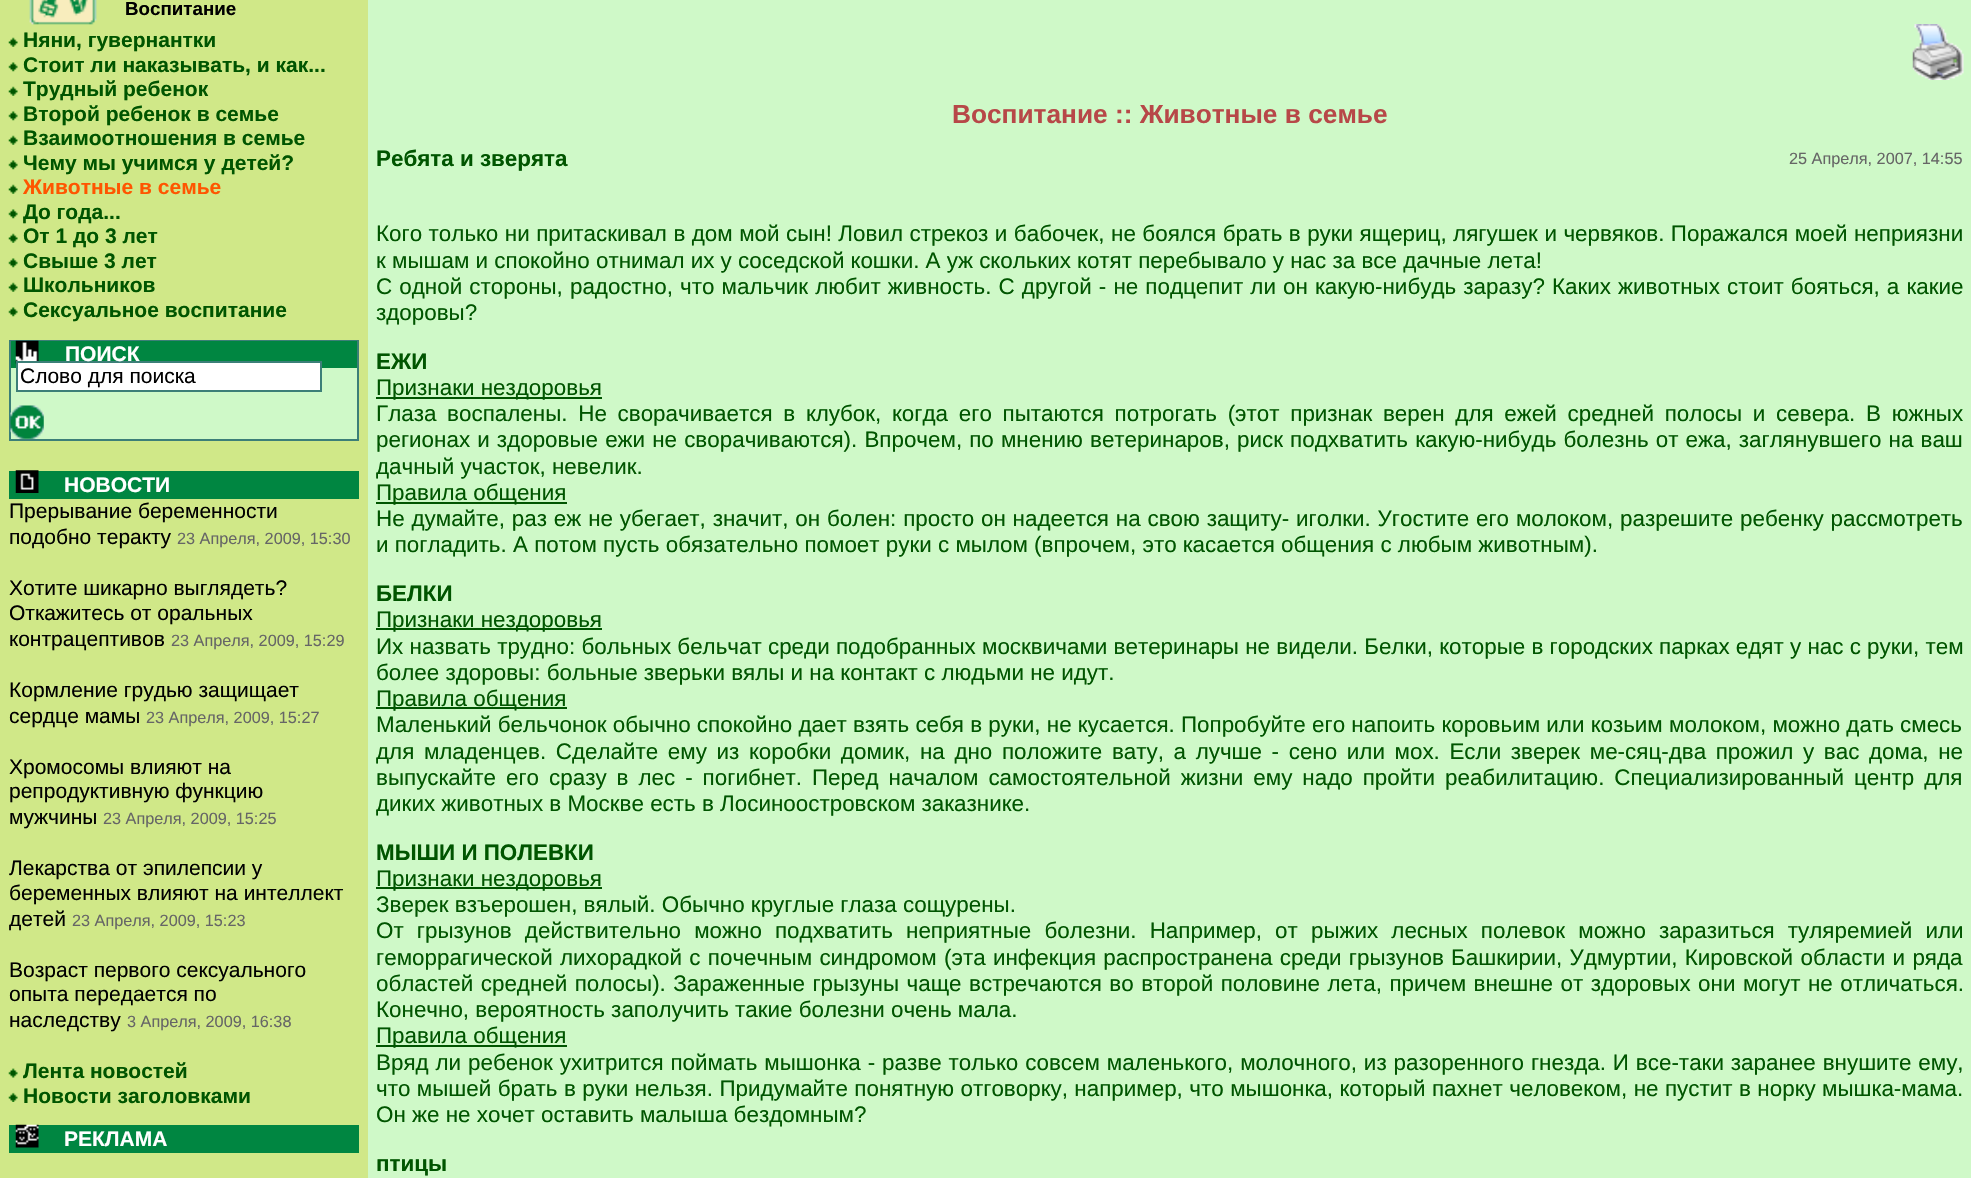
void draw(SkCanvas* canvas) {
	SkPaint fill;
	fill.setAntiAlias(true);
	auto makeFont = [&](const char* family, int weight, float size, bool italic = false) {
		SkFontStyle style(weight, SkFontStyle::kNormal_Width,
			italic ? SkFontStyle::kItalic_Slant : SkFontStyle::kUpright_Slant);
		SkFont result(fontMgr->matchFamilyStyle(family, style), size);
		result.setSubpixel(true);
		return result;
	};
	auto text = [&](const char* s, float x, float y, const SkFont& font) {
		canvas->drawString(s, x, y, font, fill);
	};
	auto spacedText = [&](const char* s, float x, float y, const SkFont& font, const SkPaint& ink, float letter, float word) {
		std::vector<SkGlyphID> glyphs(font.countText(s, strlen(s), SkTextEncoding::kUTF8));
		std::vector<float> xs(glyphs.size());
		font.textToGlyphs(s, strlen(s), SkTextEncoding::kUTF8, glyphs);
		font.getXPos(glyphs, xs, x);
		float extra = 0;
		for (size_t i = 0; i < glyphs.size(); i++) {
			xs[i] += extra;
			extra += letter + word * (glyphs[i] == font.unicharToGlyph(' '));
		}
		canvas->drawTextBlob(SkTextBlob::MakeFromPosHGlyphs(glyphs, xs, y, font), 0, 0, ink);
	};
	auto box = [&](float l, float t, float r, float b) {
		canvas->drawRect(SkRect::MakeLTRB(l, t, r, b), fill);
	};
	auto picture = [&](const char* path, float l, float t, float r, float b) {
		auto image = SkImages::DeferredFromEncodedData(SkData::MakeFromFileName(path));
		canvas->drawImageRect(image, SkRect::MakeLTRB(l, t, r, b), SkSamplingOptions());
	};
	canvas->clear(0xFFD0E888);
	picture("image0.png", 29, 0, 97, 25);
	picture("image1.png", 8, 37, 18, 47);
	picture("image2.png", 8, 62, 18, 72);
	picture("image1.png", 8, 86, 18, 96);
	picture("image2.png", 8, 111, 18, 121);
	picture("image1.png", 8, 135, 18, 145);
	picture("image2.png", 8, 160, 18, 170);
	picture("image1.png", 8, 184, 18, 194);
	picture("image2.png", 8, 209, 18, 219);
	picture("image1.png", 8, 233, 18, 243);
	picture("image2.png", 8, 258, 18, 268);
	picture("image1.png", 8, 282, 18, 292);
	picture("image2.png", 8, 307, 18, 317);
	fill.setStyle(SkPaint::kStroke_Style);
	fill.setStrokeWidth(2);
	fill.setColor(0xFF3C7F78);
	canvas->drawRect(SkRect::MakeLTRB(10, 341, 358, 440), fill);
	fill.setStyle(SkPaint::kFill_Style);
	fill.setColor(0xFF008641);
	box(11, 341, 357, 368);
	picture("image3.png", 15, 340, 39, 364);
	fill.setColor(0xFFCFF9C8);
	box(11, 368, 357, 439);
	fill.setColor(0xFFFFFFFF);
	canvas->drawRect(SkRect::MakeLTRB(17, 362, 321, 391), fill);
	fill.setStyle(SkPaint::kStroke_Style);
	fill.setColor(0xFF3C7F78);
	canvas->drawRect(SkRect::MakeLTRB(17, 362, 321, 391), fill);
	picture("image4.png", 10, 405, 44, 439);
	fill.setStyle(SkPaint::kFill_Style);
	fill.setColor(0xFF008641);
	box(9, 471, 359, 499);
	picture("image5.png", 15, 470, 39, 493);
	picture("image6.png", 8, 1068, 18, 1078);
	picture("image7.png", 8, 1092, 18, 1102);
	box(9, 1125, 359, 1153);
	picture("image8.png", 15, 1124, 39, 1148);
	fill.setColor(0xFFCFF9C8);
	box(368, 0, 1971, 1178);
	picture("image9.png", 1912, 24, 1964, 80);
	fill.setColor(0xFF005500);
	box(376, 397, 602, 399);
	box(376, 502, 567, 504);
	box(376, 628, 602, 630);
	box(376, 707, 567, 709);
	box(376, 887, 602, 889);
	box(376, 1045, 567, 1047);
	auto font1 = makeFont("Liberation Sans", 700, 18.75f);
	fill.setColor(0xFF000000);
	text("Воспитание", 125, 15, font1);
	auto font2 = makeFont("Liberation Sans", 700, 21);
	fill.setColor(0xFF005500);
	text("Няни, гувернантки", 23, 47, font2);
	text("Стоит ли наказывать, и как...", 23, 72, font2);
	text("Трудный ребенок", 23, 96, font2);
	text("Второй ребенок в семье", 23, 121, font2);
	text("Взаимоотношения в семье", 23, 145, font2);
	text("Чему мы учимся у детей?", 23, 170, font2);
	fill.setColor(0xFFFF5500);
	text("Животные в семье", 23, 194, font2);
	fill.setColor(0xFF005500);
	text("До года...", 23, 219, font2);
	text("От 1 до 3 лет", 23, 243, font2);
	text("Свыше 3 лет", 23, 268, font2);
	text("Школьников", 23, 292, font2);
	text("Сексуальное воспитание", 23, 317, font2);
	fill.setColor(0xFFFFFFFF);
	text("ПОИСК", 65, 361, font2);
	auto font3 = makeFont("Liberation Sans", 400, 21);
	fill.setColor(0xFF000000);
	text("Слово для поиска", 20, 383, font3);
	fill.setColor(0xFFFFFFFF);
	text("НОВОСТИ", 64, 492, font2);
	fill.setColor(0xFF000000);
	text("Прерывание беременности", 9, 518, font3);
	text("подобно теракту", 9, 544, font3);
	auto font4 = makeFont("Liberation Sans", 400, 16.25f);
	fill.setColor(0xFF666666);
	text("23 Апреля, 2009, 15:30", 177, 544, font4);
	fill.setColor(0xFF000000);
	text("Хотите шикарно выглядеть?", 9, 595, font3);
	text("Откажитесь от оральных", 9, 620, font3);
	text("контрацептивов", 9, 646, font3);
	fill.setColor(0xFF666666);
	text("23 Апреля, 2009, 15:29", 171, 646, font4);
	fill.setColor(0xFF000000);
	text("Кормление грудью защищает", 9, 697, font3);
	text("сердце мамы", 9, 723, font3);
	fill.setColor(0xFF666666);
	text("23 Апреля, 2009, 15:27", 146, 723, font4);
	fill.setColor(0xFF000000);
	text("Хромосомы влияют на", 9, 774, font3);
	text("репродуктивную функцию", 9, 798, font3);
	text("мужчины", 9, 824, font3);
	fill.setColor(0xFF666666);
	text("23 Апреля, 2009, 15:25", 103, 824, font4);
	fill.setColor(0xFF000000);
	text("Лекарства от эпилепсии у", 9, 875, font3);
	text("беременных влияют на интеллект", 9, 900, font3);
	text("детей", 9, 926, font3);
	fill.setColor(0xFF666666);
	text("23 Апреля, 2009, 15:23", 72, 926, font4);
	fill.setColor(0xFF000000);
	text("Возраст первого сексуального", 9, 977, font3);
	text("опыта передается по", 9, 1001, font3);
	text("наследству", 9, 1027, font3);
	fill.setColor(0xFF666666);
	text("3 Апреля, 2009, 16:38", 127, 1027, font4);
	fill.setColor(0xFF005500);
	text("Лента новостей", 23, 1078, font2);
	text("Новости заголовками", 23, 1103, font2);
	fill.setColor(0xFFFFFFFF);
	text("РЕКЛАМА", 64, 1146, font2);
	auto font5 = makeFont("Liberation Sans", 700, 26.25f);
	fill.setColor(0xFFB74848);
	text("Воспитание :: Животные в семье", 952, 123, font5);
	auto font6 = makeFont("Liberation Sans", 700, 22.4f);
	fill.setColor(0xFF005500);
	text("Ребята и зверята", 376, 166, font6);
	fill.setColor(0xFF666666);
	text("25 Апреля, 2007, 14:55", 1789, 164, font4);
	auto font7 = makeFont("Liberation Sans", 400, 22.4f);
	fill.setColor(0xFF005500);
	spacedText("Кого только ни притаскивал в дом мой сын! Ловил стрекоз и бабочек, не боялся брать в руки ящериц, лягушек и червяков. Поражался моей неприязни", 376, 241, font7, fill, 0, 0.25f);
	text("к мышам и спокойно отнимал их у соседской кошки. А уж скольких котят перебывало у нас за все дачные лета!", 376, 268, font7);
	spacedText("С одной стороны, радостно, что мальчик любит живность. С другой - не подцепит ли он какую-нибудь заразу? Каких животных стоит бояться, а какие", 376, 294, font7, fill, 0, 0.9f);
	text("здоровы?", 376, 320, font7);
	text("ЕЖИ", 376, 369, font6);
	text("Признаки нездоровья", 376, 395, font7);
	spacedText("Глаза воспалены. Не сворачивается в клубок, когда его пытаются потрогать (этот признак верен для ежей средней полосы и севера. В южных", 376, 421, font7, fill, 0, 4.5f);
	spacedText("регионах и здоровые ежи не сворачиваются). Впрочем, по мнению ветеринаров, риск подхватить какую-нибудь болезнь от ежа, заглянувшего на ваш", 376, 447, font7, fill, 0, 0.9f);
	text("дачный участок, невелик.", 376, 474, font7);
	text("Правила общения", 376, 500, font7);
	spacedText("Не думайте, раз еж не убегает, значит, он болен: просто он надеется на свою защиту- иголки. Угостите его молоком, разрешите ребенку рассмотреть", 376, 526, font7, fill, 0, 0.6f);
	text("и погладить. А потом пусть обязательно помоет руки с мылом (впрочем, это касается общения с любым животным).", 376, 552, font7);
	text("БЕЛКИ", 376, 601, font6);
	text("Признаки нездоровья", 376, 627, font7);
	text("Их назвать трудно: больных бельчат среди подобранных москвичами ветеринары не видели. Белки, которые в городских парках едят у нас с руки, тем", 376, 654, font7);
	text("более здоровы: больные зверьки вялы и на контакт с людьми не идут.", 376, 680, font7);
	text("Правила общения", 376, 706, font7);
	text("Маленький бельчонок обычно спокойно дает взять себя в руки, не кусается. Попробуйте его напоить коровьим или козьим молоком, можно дать смесь", 376, 732, font7);
	spacedText("для младенцев. Сделайте ему из коробки домик, на дно положите вату, а лучше - сено или мох. Если зверек ме-сяц-два прожил у вас дома, не", 376, 759, font7, fill, 0, 3.4f);
	spacedText("выпускайте его сразу в лес - погибнет. Перед началом самостоятельной жизни ему надо пройти реабилитацию. Специализированный центр для", 376, 785, font7, fill, 0, 3.75f);
	text("диких животных в Москве есть в Лосиноостровском заказнике.", 376, 811, font7);
	text("МЫШИ И ПОЛЕВКИ", 376, 860, font6);
	text("Признаки нездоровья", 376, 886, font7);
	text("Зверек взъерошен, вялый. Обычно круглые глаза сощурены.", 376, 912, font7);
	spacedText("От грызунов действительно можно подхватить неприятные болезни. Например, от рыжих лесных полевок можно заразиться туляремией или", 376, 938, font7, fill, 0, 6.9f);
	spacedText("геморрагической лихорадкой с почечным синдромом (эта инфекция распространена среди грызунов Башкирии, Удмуртии, Кировской области и ряда", 376, 965, font7, fill, 0, 1.1f);
	spacedText("областей средней полосы). Зараженные грызуны чаще встречаются во второй половине лета, причем внешне от здоровых они могут не отличаться.", 376, 991, font7, fill, 0, 1.25f);
	text("Конечно, вероятность заполучить такие болезни очень мала.", 376, 1017, font7);
	text("Правила общения", 376, 1043, font7);
	spacedText("Вряд ли ребенок ухитрится поймать мышонка - разве только совсем маленького, молочного, из разоренного гнезда. И все-таки заранее внушите ему,", 376, 1070, font7, fill, 0, 0.7f);
	spacedText("что мышей брать в руки нельзя. Придумайте понятную отговорку, например, что мышонка, который пахнет человеком, не пустит в норку мышка-мама.", 376, 1096, font7, fill, 0, 0.25f);
	text("Он же не хочет оставить малыша бездомным?", 376, 1122, font7);
	text("птицы", 376, 1171, font6);
}
